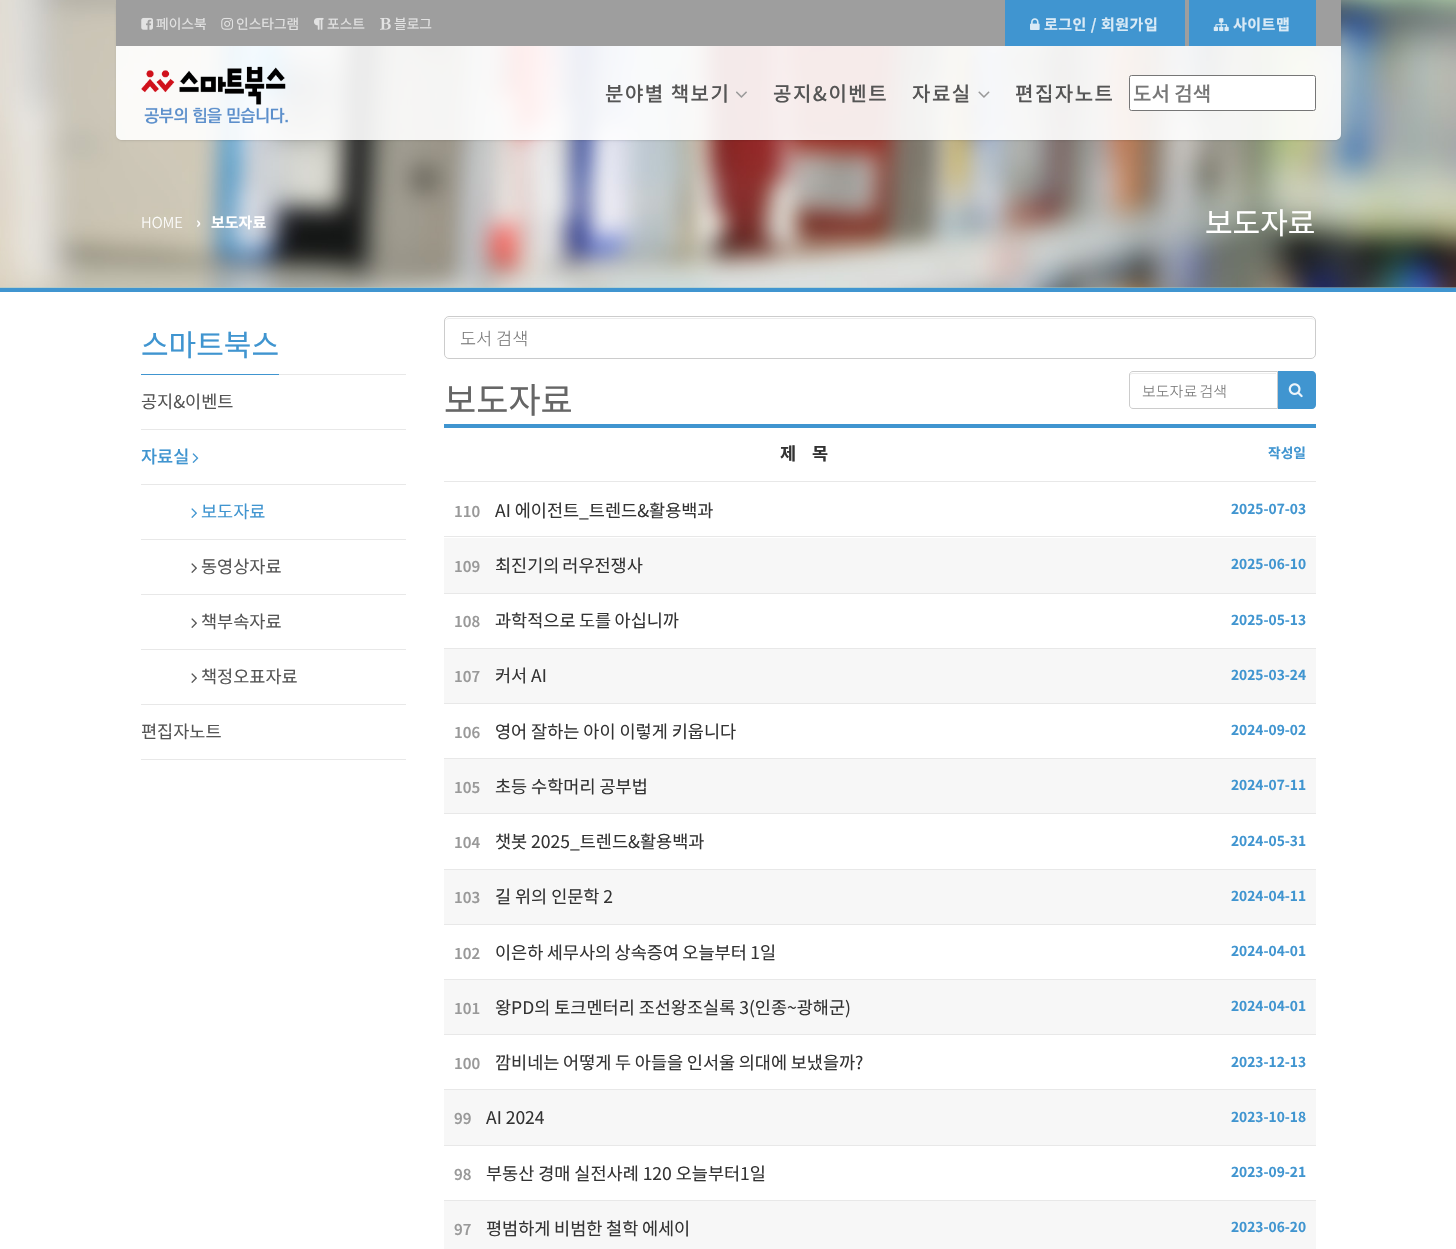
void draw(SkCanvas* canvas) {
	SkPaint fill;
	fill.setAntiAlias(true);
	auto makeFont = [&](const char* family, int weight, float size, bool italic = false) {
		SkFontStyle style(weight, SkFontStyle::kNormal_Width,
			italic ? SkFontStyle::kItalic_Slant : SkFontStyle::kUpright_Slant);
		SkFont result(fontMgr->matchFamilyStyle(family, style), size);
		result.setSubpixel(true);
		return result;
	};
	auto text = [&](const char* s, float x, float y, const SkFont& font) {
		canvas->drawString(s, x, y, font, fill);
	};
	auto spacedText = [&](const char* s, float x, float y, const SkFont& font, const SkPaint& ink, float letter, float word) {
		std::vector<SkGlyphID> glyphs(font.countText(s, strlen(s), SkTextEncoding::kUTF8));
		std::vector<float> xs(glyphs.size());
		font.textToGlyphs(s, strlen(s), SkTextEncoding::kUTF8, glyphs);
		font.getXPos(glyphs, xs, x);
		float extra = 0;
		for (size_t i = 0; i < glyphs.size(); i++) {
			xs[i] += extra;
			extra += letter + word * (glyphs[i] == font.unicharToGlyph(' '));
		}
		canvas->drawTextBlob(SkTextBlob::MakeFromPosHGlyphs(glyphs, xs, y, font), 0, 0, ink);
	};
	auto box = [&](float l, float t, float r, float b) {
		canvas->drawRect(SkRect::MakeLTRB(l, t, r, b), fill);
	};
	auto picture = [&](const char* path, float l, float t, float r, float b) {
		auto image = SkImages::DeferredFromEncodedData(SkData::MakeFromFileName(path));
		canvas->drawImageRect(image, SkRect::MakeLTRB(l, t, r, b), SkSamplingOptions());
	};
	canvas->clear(0xFFFFFFFF);
	fill.setColor(0xFF9BC8CE);
	box(0, 287, 1456, 288);
	picture("image9.png", 0, 0, 1456, 288);
	canvas->save();
	canvas->clipPath(SkPathBuilder(SkPathFillType::kEvenOdd).moveTo(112, 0).lineTo(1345, 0).lineTo(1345, 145).lineTo(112, 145).close().moveTo(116, 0).lineTo(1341, 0).lineTo(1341, 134).cubicTo(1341, 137.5f, 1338.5f, 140, 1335, 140).lineTo(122, 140).cubicTo(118.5f, 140, 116, 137.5f, 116, 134).close().detach(), true);
	fill.setColor(0x1A000000);
	fill.setMaskFilter(SkMaskFilter::MakeBlur(kNormal_SkBlurStyle, 1));
	canvas->drawRoundRect(SkRect::MakeLTRB(116, 1, 1341, 141), 6, 6, fill);
	fill.setMaskFilter(nullptr);
	canvas->restore();
	fill.setColor(0xFF9E9E9E);
	box(116, 0, 1341, 46);
	picture("image0.png", 141, 17, 153, 30);
	picture("image1.png", 221, 17, 233, 30);
	picture("image2.png", 314, 17, 324, 30);
	picture("image3.png", 380, 17, 391, 30);
	fill.setColor(0xFF4095D0);
	box(1005, 0, 1185, 46);
	picture("image4.png", 1030, 18, 1040, 30);
	box(1189, 0, 1316, 46);
	picture("image5.png", 1213, 18, 1229, 32);
	fill.setColor(0xE6FFFFFF);
	canvas->drawPath(SkPathBuilder().moveTo(116, 46).lineTo(1341, 46).lineTo(1341, 134).cubicTo(1341, 137.5f, 1338.5f, 140, 1335, 140).lineTo(122, 140).cubicTo(118.5f, 140, 116, 137.5f, 116, 134).close().detach(), fill);
	picture("image6.png", 141, 66, 288, 124);
	picture("image7.png", 736, 91, 747, 98);
	picture("image8.png", 978, 91, 990, 98);
	fill.setColor(0xFFFFFFFF);
	canvas->drawRoundRect(SkRect::MakeLTRB(1129.5f, 75.5f, 1315.5f, 110.5f), 2, 2, fill);
	fill.setStyle(SkPaint::kStroke_Style);
	fill.setStrokeWidth(1);
	fill.setColor(0xFF767676);
	canvas->drawRoundRect(SkRect::MakeLTRB(1129.5f, 75.5f, 1315.5f, 110.5f), 2, 2, fill);
	fill.setStyle(SkPaint::kFill_Style);
	fill.setColor(0xFF4095D0);
	box(0, 288, 1456, 292);
	fill.setColor(0xFFE8E8E8);
	box(279, 374, 406, 375);
	fill.setColor(0xFF4095D0);
	box(141, 374, 279, 375);
	fill.setColor(0xFFE8E8E8);
	box(141, 429, 406, 430);
	box(141, 484, 406, 485);
	picture("image10.png", 192, 453, 199, 463);
	box(141, 539, 406, 540);
	picture("image11.png", 191, 508, 197, 518);
	box(141, 594, 406, 595);
	picture("image12.png", 191, 563, 197, 573);
	box(141, 649, 406, 650);
	picture("image12.png", 191, 618, 197, 628);
	box(141, 704, 406, 705);
	picture("image12.png", 191, 673, 197, 683);
	box(141, 759, 406, 760);
	fill.setColor(0xFFECECEC);
	canvas->drawPath(SkPathBuilder().moveTo(449, 319).lineTo(1311, 319).cubicTo(1313, 319, 1315, 320, 1315, 322).cubicTo(1315, 320, 1313, 318, 1311, 318).lineTo(449, 318).cubicTo(447, 318, 445, 320, 445, 322).cubicTo(445, 320, 447, 319, 449, 319).close().detach(), fill);
	fill.setStyle(SkPaint::kStroke_Style);
	fill.setColor(0xFFCCCCCC);
	canvas->drawRoundRect(SkRect::MakeLTRB(444.5f, 316.5f, 1315.5f, 358.5f), 4.5f, 4.5f, fill);
	fill.setStyle(SkPaint::kFill_Style);
	fill.setColor(0xFF4095D0);
	canvas->drawPath(SkPathBuilder().moveTo(1276, 371).lineTo(1312, 371).cubicTo(1314, 371, 1316, 373, 1316, 375).lineTo(1316, 405).cubicTo(1316, 407, 1314, 409, 1312, 409).lineTo(1276, 409).close().detach(), fill);
	fill.setColor(0xFFFFFFFF);
	canvas->drawPath(SkPathBuilder().moveTo(1133, 371).lineTo(1278, 371).lineTo(1278, 409).lineTo(1133, 409).cubicTo(1131, 409, 1129, 407, 1129, 405).lineTo(1129, 375).cubicTo(1129, 373, 1131, 371, 1133, 371).close().detach(), fill);
	fill.setColor(0xFFECECEC);
	canvas->drawPath(SkPathBuilder().moveTo(1132, 374).lineTo(1276, 374).lineTo(1276, 373).lineTo(1132, 373).cubicTo(1131, 373, 1130, 374, 1130, 376).cubicTo(1130, 375, 1131, 374, 1132, 374).close().detach(), fill);
	fill.setStyle(SkPaint::kStroke_Style);
	fill.setColor(0xFFCCCCCC);
	canvas->drawPath(SkPathBuilder().moveTo(1133, 371.5f).lineTo(1277.5f, 371.5f).lineTo(1277.5f, 408.5f).lineTo(1133, 408.5f).cubicTo(1131, 408.5f, 1129.5f, 407, 1129.5f, 405).lineTo(1129.5f, 375).cubicTo(1129.5f, 373, 1131, 371.5f, 1133, 371.5f).close().detach(), fill);
	picture("image13.png", 1288, 383, 1303, 398);
	fill.setStyle(SkPaint::kFill_Style);
	fill.setColor(0xFF4095D0);
	box(444, 424, 1316, 428);
	fill.setColor(0xFFE8E8E8);
	box(444, 481, 1316, 482);
	box(444, 536, 1316, 537);
	fill.setColor(0xFFF7F7F7);
	box(444, 538, 1316, 593);
	fill.setColor(0xFFE8E8E8);
	box(444, 593, 1316, 594);
	box(444, 648, 1316, 649);
	fill.setColor(0xFFF7F7F7);
	box(444, 649, 1316, 703);
	fill.setColor(0xFFE8E8E8);
	box(444, 703, 1316, 704);
	box(444, 758, 1316, 759);
	fill.setColor(0xFFF7F7F7);
	box(444, 759, 1316, 813);
	fill.setColor(0xFFE8E8E8);
	box(444, 813, 1316, 814);
	box(444, 869, 1316, 870);
	fill.setColor(0xFFF7F7F7);
	box(444, 870, 1316, 924);
	fill.setColor(0xFFE8E8E8);
	box(444, 924, 1316, 925);
	box(444, 979, 1316, 980);
	fill.setColor(0xFFF7F7F7);
	box(444, 980, 1316, 1034);
	fill.setColor(0xFFE8E8E8);
	box(444, 1034, 1316, 1035);
	box(444, 1089, 1316, 1090);
	fill.setColor(0xFFF7F7F7);
	box(444, 1090, 1316, 1145);
	fill.setColor(0xFFE8E8E8);
	box(444, 1145, 1316, 1146);
	box(444, 1200, 1316, 1201);
	fill.setColor(0xFFF7F7F7);
	box(444, 1201, 1316, 1249);
	auto font1 = makeFont("Noto Sans KR", 400, 13.75f);
	fill.setColor(0xFFE2E2E2);
	text("페이스북", 156, 29, font1);
	text("인스타그램", 236, 29, font1);
	text("포스트", 327, 29, font1);
	text("블로그", 394, 29, font1);
	auto font2 = makeFont("Noto Sans KR", 700, 15);
	fill.setColor(0xFFD9EAF6);
	spacedText("로그인 / 회원가입", 1044, 30, font2, fill, 0.5f, 0);
	spacedText("사이트맵", 1233, 30, font2, fill, 0.5f, 0);
	auto font3 = makeFont("Noto Sans KR", 500, 20);
	fill.setColor(0xFF555555);
	spacedText("분야별 책보기", 605, 101, font3, fill, 1.5f, 0);
	spacedText("공지&이벤트", 773, 101, font3, fill, 1.5f, 0);
	spacedText("자료실", 912, 101, font3, fill, 1.5f, 0);
	spacedText("편집자노트", 1015, 101, font3, fill, 1.5f, 0);
	fill.setColor(0xFF777777);
	text("도서 검색", 1133, 101, font3);
	auto font4 = makeFont("Noto Sans KR", 300, 15);
	fill.setColor(0xFFFFFFFF);
	text("HOME", 141, 228, font4);
	text("›", 196, 228, font2);
	text("보도자료", 211, 228, font2);
	auto font5 = makeFont("Noto Sans KR", 400, 30);
	text("보도자료", 1205, 234, font5);
	fill.setColor(0xFF4095D0);
	text("스마트북스", 141, 356, font5);
	auto font6 = makeFont("Noto Sans KR", 400, 17.5f);
	fill.setColor(0xFF555555);
	text("공지&이벤트", 141, 408, font6);
	auto font7 = makeFont("Noto Sans KR", 500, 17.5f);
	fill.setColor(0xFF4095D0);
	text("자료실", 141, 463, font7);
	text("보도자료", 201, 518, font6);
	fill.setColor(0xFF555555);
	text("동영상자료", 201, 573, font6);
	text("책부속자료", 201, 628, font6);
	text("책정오표자료", 201, 683, font6);
	text("편집자노트", 141, 738, font6);
	auto font8 = makeFont("Noto Sans KR", 300, 17.5f);
	fill.setColor(0xFF777777);
	text("도서 검색", 460, 345, font8);
	auto font9 = makeFont("Noto Sans KR", 400, 35);
	fill.setColor(0xFF666666);
	text("보도자료", 444, 413, font9);
	fill.setColor(0xFF777777);
	spacedText("보도자료 검색", 1142, 397, font4, fill, 0, -1);
	auto font10 = makeFont("Noto Sans KR", 700, 17.5f);
	fill.setColor(0xFF333333);
	text("제    목", 780, 460, font10);
	auto font11 = makeFont("Noto Sans KR", 700, 13.75f);
	fill.setColor(0xFF4095D0);
	text("작성일", 1268, 458, font11);
	auto font12 = makeFont("Noto Sans KR", 600, 15);
	fill.setColor(0xFF999999);
	text("110", 454, 517, font12);
	fill.setColor(0xFF333333);
	text("AI 에이전트_트렌드&활용백과", 495, 517, font6);
	fill.setColor(0xFF4095D0);
	text("2025-07-03", 1231, 514, font11);
	fill.setColor(0xFF999999);
	text("109", 454, 572, font12);
	fill.setColor(0xFF333333);
	spacedText("최진기의 러우전쟁사", 495, 572, font6, fill, 0, -1);
	fill.setColor(0xFF4095D0);
	text("2025-06-10", 1231, 569, font11);
	fill.setColor(0xFF999999);
	text("108", 454, 627, font12);
	fill.setColor(0xFF333333);
	spacedText("과학적으로 도를 아십니까", 495, 627, font6, fill, 0, -0.5f);
	fill.setColor(0xFF4095D0);
	text("2025-05-13", 1231, 625, font11);
	fill.setColor(0xFF999999);
	text("107", 454, 682, font12);
	fill.setColor(0xFF333333);
	text("커서 AI", 495, 682, font6);
	fill.setColor(0xFF4095D0);
	text("2025-03-24", 1231, 680, font11);
	fill.setColor(0xFF999999);
	text("106", 454, 738, font12);
	fill.setColor(0xFF333333);
	text("영어 잘하는 아이 이렇게 키웁니다", 495, 738, font6);
	fill.setColor(0xFF4095D0);
	text("2024-09-02", 1231, 735, font11);
	fill.setColor(0xFF999999);
	text("105", 454, 793, font12);
	fill.setColor(0xFF333333);
	text("초등 수학머리 공부법", 495, 793, font6);
	fill.setColor(0xFF4095D0);
	text("2024-07-11", 1231, 790, font11);
	fill.setColor(0xFF999999);
	text("104", 454, 848, font12);
	fill.setColor(0xFF333333);
	text("챗봇 2025_트렌드&활용백과", 495, 848, font6);
	fill.setColor(0xFF4095D0);
	text("2024-05-31", 1231, 846, font11);
	fill.setColor(0xFF999999);
	text("103", 454, 903, font12);
	fill.setColor(0xFF333333);
	text("길 위의 인문학 2", 495, 903, font6);
	fill.setColor(0xFF4095D0);
	text("2024-04-11", 1231, 901, font11);
	fill.setColor(0xFF999999);
	text("102", 454, 959, font12);
	fill.setColor(0xFF333333);
	spacedText("이은하 세무사의 상속증여 오늘부터 1일", 495, 959, font6, fill, 0, -0.5f);
	fill.setColor(0xFF4095D0);
	text("2024-04-01", 1231, 956, font11);
	fill.setColor(0xFF999999);
	text("101", 454, 1014, font12);
	fill.setColor(0xFF333333);
	text("왕PD의 토크멘터리 조선왕조실록 3(인종~광해군)", 495, 1014, font6);
	fill.setColor(0xFF4095D0);
	text("2024-04-01", 1231, 1011, font11);
	fill.setColor(0xFF999999);
	text("100", 454, 1069, font12);
	fill.setColor(0xFF333333);
	spacedText("깜비네는 어떻게 두 아들을 인서울 의대에 보냈을까?", 495, 1069, font6, fill, 0, -0.25f);
	fill.setColor(0xFF4095D0);
	text("2023-12-13", 1231, 1067, font11);
	fill.setColor(0xFF999999);
	text("99", 454, 1124, font12);
	fill.setColor(0xFF333333);
	text("AI 2024", 486, 1124, font6);
	fill.setColor(0xFF4095D0);
	text("2023-10-18", 1231, 1122, font11);
	fill.setColor(0xFF999999);
	text("98", 454, 1180, font12);
	fill.setColor(0xFF333333);
	text("부동산 경매 실전사례 120 오늘부터1일", 486, 1180, font6);
	fill.setColor(0xFF4095D0);
	text("2023-09-21", 1231, 1177, font11);
	fill.setColor(0xFF999999);
	text("97", 454, 1235, font12);
	fill.setColor(0xFF333333);
	spacedText("평범하게 비범한 철학 에세이", 486, 1235, font6, fill, 0, -0.25f);
	fill.setColor(0xFF4095D0);
	text("2023-06-20", 1231, 1232, font11);
}
